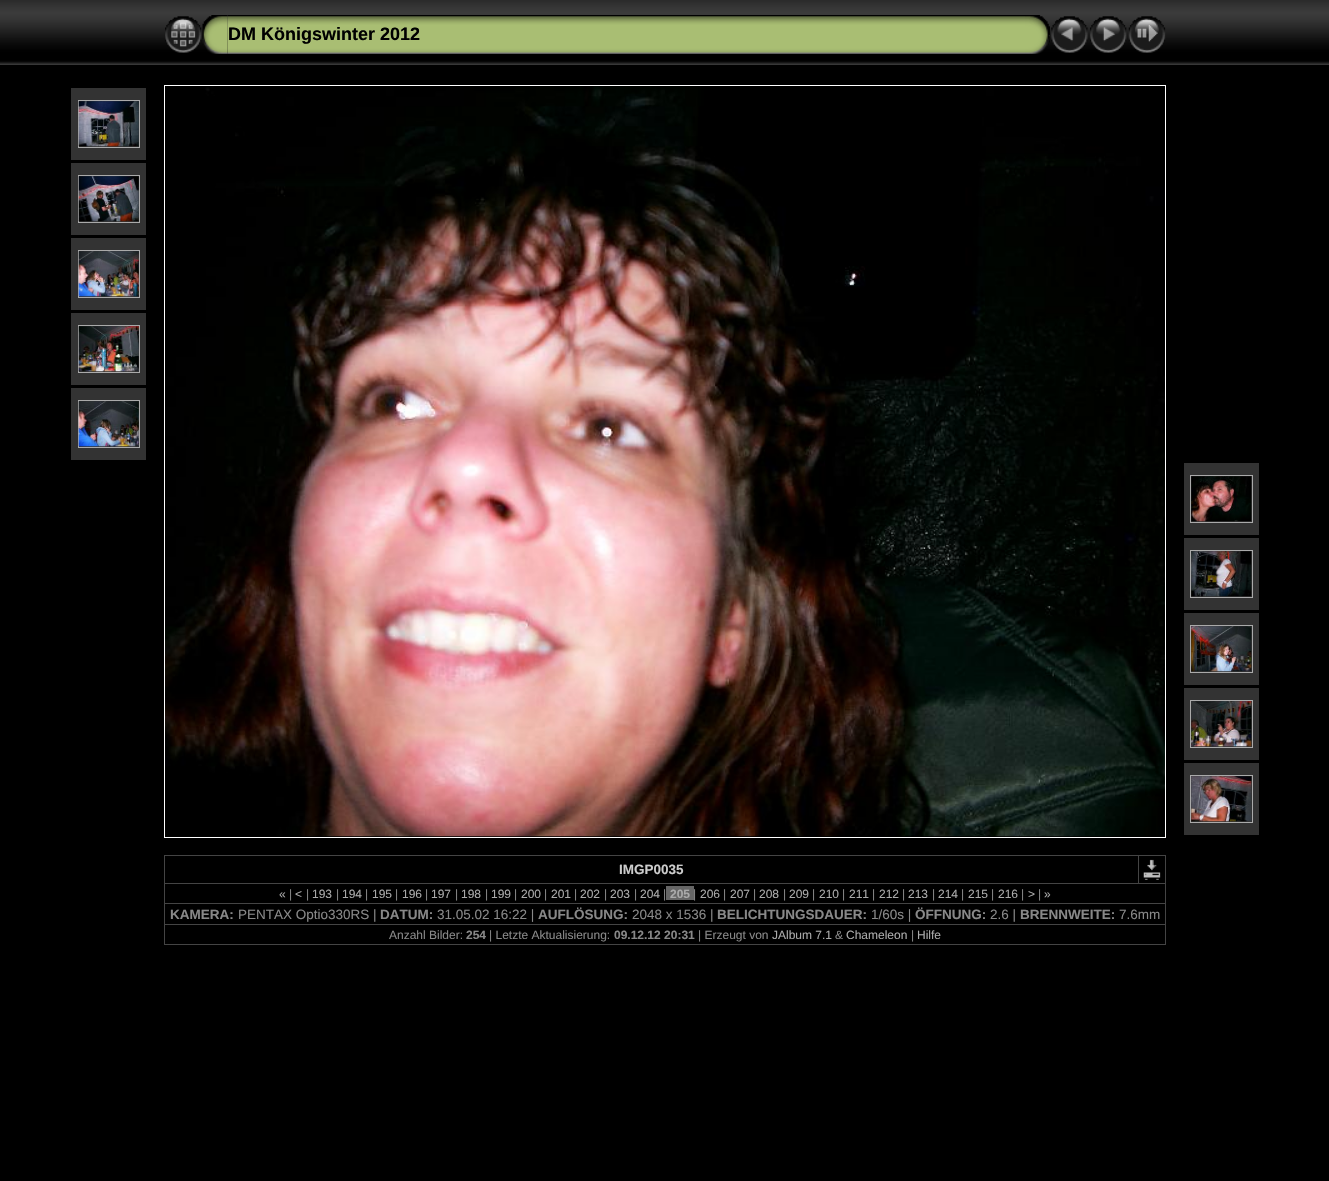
void draw(SkCanvas* canvas) {
	SkPaint fill;
	fill.setAntiAlias(true);
	auto makeFont = [&](const char* family, int weight, float size, bool italic = false) {
		SkFontStyle style(weight, SkFontStyle::kNormal_Width,
			italic ? SkFontStyle::kItalic_Slant : SkFontStyle::kUpright_Slant);
		SkFont result(fontMgr->matchFamilyStyle(family, style), size);
		result.setSubpixel(true);
		return result;
	};
	auto text = [&](const char* s, float x, float y, const SkFont& font) {
		canvas->drawString(s, x, y, font, fill);
	};
	auto box = [&](float l, float t, float r, float b) {
		canvas->drawRect(SkRect::MakeLTRB(l, t, r, b), fill);
	};
	auto picture = [&](const char* path, float l, float t, float r, float b) {
		auto image = SkImages::DeferredFromEncodedData(SkData::MakeFromFileName(path));
		canvas->drawImageRect(image, SkRect::MakeLTRB(l, t, r, b), SkSamplingOptions());
	};
	canvas->clear(0xFF000000);
	picture("image0.png", 0, 0, 1329, 65);
	picture("image1.png", 165, 16, 202, 53);
	picture("image3.png", 227, 15, 1025, 54);
	picture("image2.png", 202, 15, 228, 54);
	picture("image4.png", 1025, 15, 1050, 54);
	picture("image5.png", 1051, 16, 1088, 53);
	picture("image6.png", 1090, 16, 1127, 53);
	picture("image7.png", 1128, 16, 1166, 53);
	fill.setColor(0xFF333333);
	box(71, 88, 146, 160);
	fill.setStyle(SkPaint::kStroke_Style);
	fill.setStrokeWidth(1);
	fill.setColor(0xFFAAAAAA);
	canvas->drawRect(SkRect::MakeLTRB(78.5f, 100.5f, 139.5f, 147.5f), fill);
	picture("image8.png", 78, 101, 139, 147);
	fill.setStyle(SkPaint::kFill_Style);
	fill.setColor(0xFF333333);
	box(71, 163, 146, 235);
	fill.setStyle(SkPaint::kStroke_Style);
	fill.setColor(0xFFAAAAAA);
	canvas->drawRect(SkRect::MakeLTRB(78.5f, 175.5f, 139.5f, 222.5f), fill);
	picture("image9.png", 78, 176, 139, 222);
	fill.setStyle(SkPaint::kFill_Style);
	fill.setColor(0xFF333333);
	box(71, 238, 146, 310);
	fill.setStyle(SkPaint::kStroke_Style);
	fill.setColor(0xFFAAAAAA);
	canvas->drawRect(SkRect::MakeLTRB(78.5f, 250.5f, 139.5f, 297.5f), fill);
	picture("image10.png", 78, 251, 139, 297);
	fill.setStyle(SkPaint::kFill_Style);
	fill.setColor(0xFF333333);
	box(71, 313, 146, 385);
	fill.setStyle(SkPaint::kStroke_Style);
	fill.setColor(0xFFAAAAAA);
	canvas->drawRect(SkRect::MakeLTRB(78.5f, 325.5f, 139.5f, 372.5f), fill);
	picture("image11.png", 78, 326, 139, 372);
	fill.setStyle(SkPaint::kFill_Style);
	fill.setColor(0xFF333333);
	box(71, 388, 146, 460);
	fill.setStyle(SkPaint::kStroke_Style);
	fill.setColor(0xFFAAAAAA);
	canvas->drawRect(SkRect::MakeLTRB(78.5f, 400.5f, 139.5f, 447.5f), fill);
	picture("image12.png", 78, 401, 139, 447);
	fill.setColor(0xFFFFFFFF);
	canvas->drawRect(SkRect::MakeLTRB(164.5f, 85.5f, 1165.5f, 837.5f), fill);
	picture("image13.png", 165, 86, 1165, 837);
	fill.setStyle(SkPaint::kFill_Style);
	fill.setColor(0xFF333333);
	box(1184, 463, 1259, 535);
	fill.setStyle(SkPaint::kStroke_Style);
	fill.setColor(0xFFAAAAAA);
	canvas->drawRect(SkRect::MakeLTRB(1190.5f, 475.5f, 1252.5f, 522.5f), fill);
	picture("image14.png", 1191, 476, 1252, 522);
	fill.setStyle(SkPaint::kFill_Style);
	fill.setColor(0xFF333333);
	box(1184, 538, 1259, 610);
	fill.setStyle(SkPaint::kStroke_Style);
	fill.setColor(0xFFAAAAAA);
	canvas->drawRect(SkRect::MakeLTRB(1190.5f, 550.5f, 1252.5f, 597.5f), fill);
	picture("image15.png", 1191, 551, 1252, 597);
	fill.setStyle(SkPaint::kFill_Style);
	fill.setColor(0xFF333333);
	box(1184, 613, 1259, 685);
	fill.setStyle(SkPaint::kStroke_Style);
	fill.setColor(0xFFAAAAAA);
	canvas->drawRect(SkRect::MakeLTRB(1190.5f, 625.5f, 1252.5f, 672.5f), fill);
	picture("image16.png", 1191, 626, 1252, 672);
	fill.setStyle(SkPaint::kFill_Style);
	fill.setColor(0xFF333333);
	box(1184, 688, 1259, 760);
	fill.setStyle(SkPaint::kStroke_Style);
	fill.setColor(0xFFAAAAAA);
	canvas->drawRect(SkRect::MakeLTRB(1190.5f, 700.5f, 1252.5f, 747.5f), fill);
	picture("image17.png", 1191, 701, 1252, 747);
	fill.setStyle(SkPaint::kFill_Style);
	fill.setColor(0xFF333333);
	box(1184, 763, 1259, 835);
	fill.setStyle(SkPaint::kStroke_Style);
	fill.setColor(0xFFAAAAAA);
	canvas->drawRect(SkRect::MakeLTRB(1190.5f, 775.5f, 1252.5f, 822.5f), fill);
	picture("image18.png", 1191, 776, 1252, 822);
	fill.setStyle(SkPaint::kFill_Style);
	fill.setColor(0xFF444444);
	box(164, 855, 1166, 856);
	box(1165, 855, 1166, 945);
	box(164, 944, 1166, 945);
	box(164, 855, 165, 945);
	box(164, 883, 1166, 884);
	box(1138, 855, 1139, 884);
	picture("image19.png", 1143, 859, 1161, 880);
	fill.setColor(0xFF666666);
	box(666, 886, 694, 900);
	fill.setColor(0xFF444444);
	box(164, 903, 1166, 904);
	box(164, 924, 1166, 925);
	auto font1 = makeFont("Liberation Sans", 700, 18);
	fill.setColor(0xFF000000);
	text("DM Königswinter 2012", 228, 40, font1);
	auto font2 = makeFont("Liberation Sans", 700, 13.5f);
	fill.setColor(0xFFCCCCCC);
	text("IMGP0035", 619, 874, font2);
	auto font3 = makeFont("Liberation Sans", 400, 12);
	fill.setColor(0xFFAAAAAA);
	text("«", 279, 898, font3);
	fill.setColor(0xFF888888);
	text("|", 289, 898, font3);
	fill.setColor(0xFFAAAAAA);
	text("<", 295, 898, font3);
	fill.setColor(0xFF888888);
	text("|", 306, 898, font3);
	fill.setColor(0xFFAAAAAA);
	text("193", 312, 898, font3);
	fill.setColor(0xFF888888);
	text("|", 336, 898, font3);
	fill.setColor(0xFFAAAAAA);
	text("194", 342, 898, font3);
	fill.setColor(0xFF888888);
	text("|", 365, 898, font3);
	fill.setColor(0xFFAAAAAA);
	text("195", 372, 898, font3);
	fill.setColor(0xFF888888);
	text("|", 395, 898, font3);
	fill.setColor(0xFFAAAAAA);
	text("196", 402, 898, font3);
	fill.setColor(0xFF888888);
	text("|", 425, 898, font3);
	fill.setColor(0xFFAAAAAA);
	text("197", 431, 898, font3);
	fill.setColor(0xFF888888);
	text("|", 455, 898, font3);
	fill.setColor(0xFFAAAAAA);
	text("198", 461, 898, font3);
	fill.setColor(0xFF888888);
	text("|", 485, 898, font3);
	fill.setColor(0xFFAAAAAA);
	text("199", 491, 898, font3);
	fill.setColor(0xFF888888);
	text("|", 514, 898, font3);
	fill.setColor(0xFFAAAAAA);
	text("200", 521, 898, font3);
	fill.setColor(0xFF888888);
	text("|", 544, 898, font3);
	fill.setColor(0xFFAAAAAA);
	text("201", 551, 898, font3);
	fill.setColor(0xFF888888);
	text("|", 574, 898, font3);
	fill.setColor(0xFFAAAAAA);
	text("202", 580, 898, font3);
	fill.setColor(0xFF888888);
	text("|", 604, 898, font3);
	fill.setColor(0xFFAAAAAA);
	text("203", 610, 898, font3);
	fill.setColor(0xFF888888);
	text("|", 634, 898, font3);
	fill.setColor(0xFFAAAAAA);
	text("204", 640, 898, font3);
	fill.setColor(0xFF888888);
	text("|", 663, 898, font3);
	auto font4 = makeFont("Liberation Sans", 700, 12);
	fill.setColor(0xFFAAAAAA);
	text("205", 670, 898, font4);
	fill.setColor(0xFF888888);
	text("|", 693, 898, font3);
	fill.setColor(0xFFAAAAAA);
	text("206", 700, 898, font3);
	fill.setColor(0xFF888888);
	text("|", 723, 898, font3);
	fill.setColor(0xFFAAAAAA);
	text("207", 730, 898, font3);
	fill.setColor(0xFF888888);
	text("|", 753, 898, font3);
	fill.setColor(0xFFAAAAAA);
	text("208", 759, 898, font3);
	fill.setColor(0xFF888888);
	text("|", 783, 898, font3);
	fill.setColor(0xFFAAAAAA);
	text("209", 789, 898, font3);
	fill.setColor(0xFF888888);
	text("|", 812, 898, font3);
	fill.setColor(0xFFAAAAAA);
	text("210", 819, 898, font3);
	fill.setColor(0xFF888888);
	text("|", 842, 898, font3);
	fill.setColor(0xFFAAAAAA);
	text("211", 849, 898, font3);
	fill.setColor(0xFF888888);
	text("|", 872, 898, font3);
	fill.setColor(0xFFAAAAAA);
	text("212", 879, 898, font3);
	fill.setColor(0xFF888888);
	text("|", 902, 898, font3);
	fill.setColor(0xFFAAAAAA);
	text("213", 908, 898, font3);
	fill.setColor(0xFF888888);
	text("|", 932, 898, font3);
	fill.setColor(0xFFAAAAAA);
	text("214", 938, 898, font3);
	fill.setColor(0xFF888888);
	text("|", 961, 898, font3);
	fill.setColor(0xFFAAAAAA);
	text("215", 968, 898, font3);
	fill.setColor(0xFF888888);
	text("|", 991, 898, font3);
	fill.setColor(0xFFAAAAAA);
	text("216", 998, 898, font3);
	fill.setColor(0xFF888888);
	text("|", 1021, 898, font3);
	fill.setColor(0xFFAAAAAA);
	text(">", 1028, 898, font3);
	fill.setColor(0xFF888888);
	text("|", 1038, 898, font3);
	fill.setColor(0xFFAAAAAA);
	text("»", 1044, 898, font3);
	fill.setColor(0xFF888888);
	text("KAMERA:", 170, 919, font2);
	auto font5 = makeFont("Liberation Sans", 400, 13.5f);
	text("PENTAX Optio330RS |", 238, 919, font5);
	text("DATUM:", 380, 919, font2);
	text("31.05.02 16:22 |", 437, 919, font5);
	text("AUFLÖSUNG:", 538, 919, font2);
	text("2048 x 1536 |", 632, 919, font5);
	text("BELICHTUNGSDAUER:", 717, 919, font2);
	text("1/60s |", 871, 919, font5);
	text("ÖFFNUNG:", 915, 919, font2);
	text("2.6 |", 990, 919, font5);
	text("BRENNWEITE:", 1020, 919, font2);
	text("7.6mm", 1119, 919, font5);
	text("Anzahl Bilder:", 389, 939, font3);
	text("254", 466, 939, font4);
	text("| Letzte Aktualisierung:", 489, 939, font3);
	text("09.12.12 20:31", 614, 939, font4);
	text("| Erzeugt von", 698, 939, font3);
	fill.setColor(0xFFAAAAAA);
	text("JAlbum 7.1", 772, 939, font3);
	fill.setColor(0xFF888888);
	text("&", 835, 939, font3);
	fill.setColor(0xFFAAAAAA);
	text("Chameleon", 846, 939, font3);
	fill.setColor(0xFF888888);
	text("|", 911, 939, font3);
	fill.setColor(0xFFAAAAAA);
	text("Hilfe", 917, 939, font3);
}
